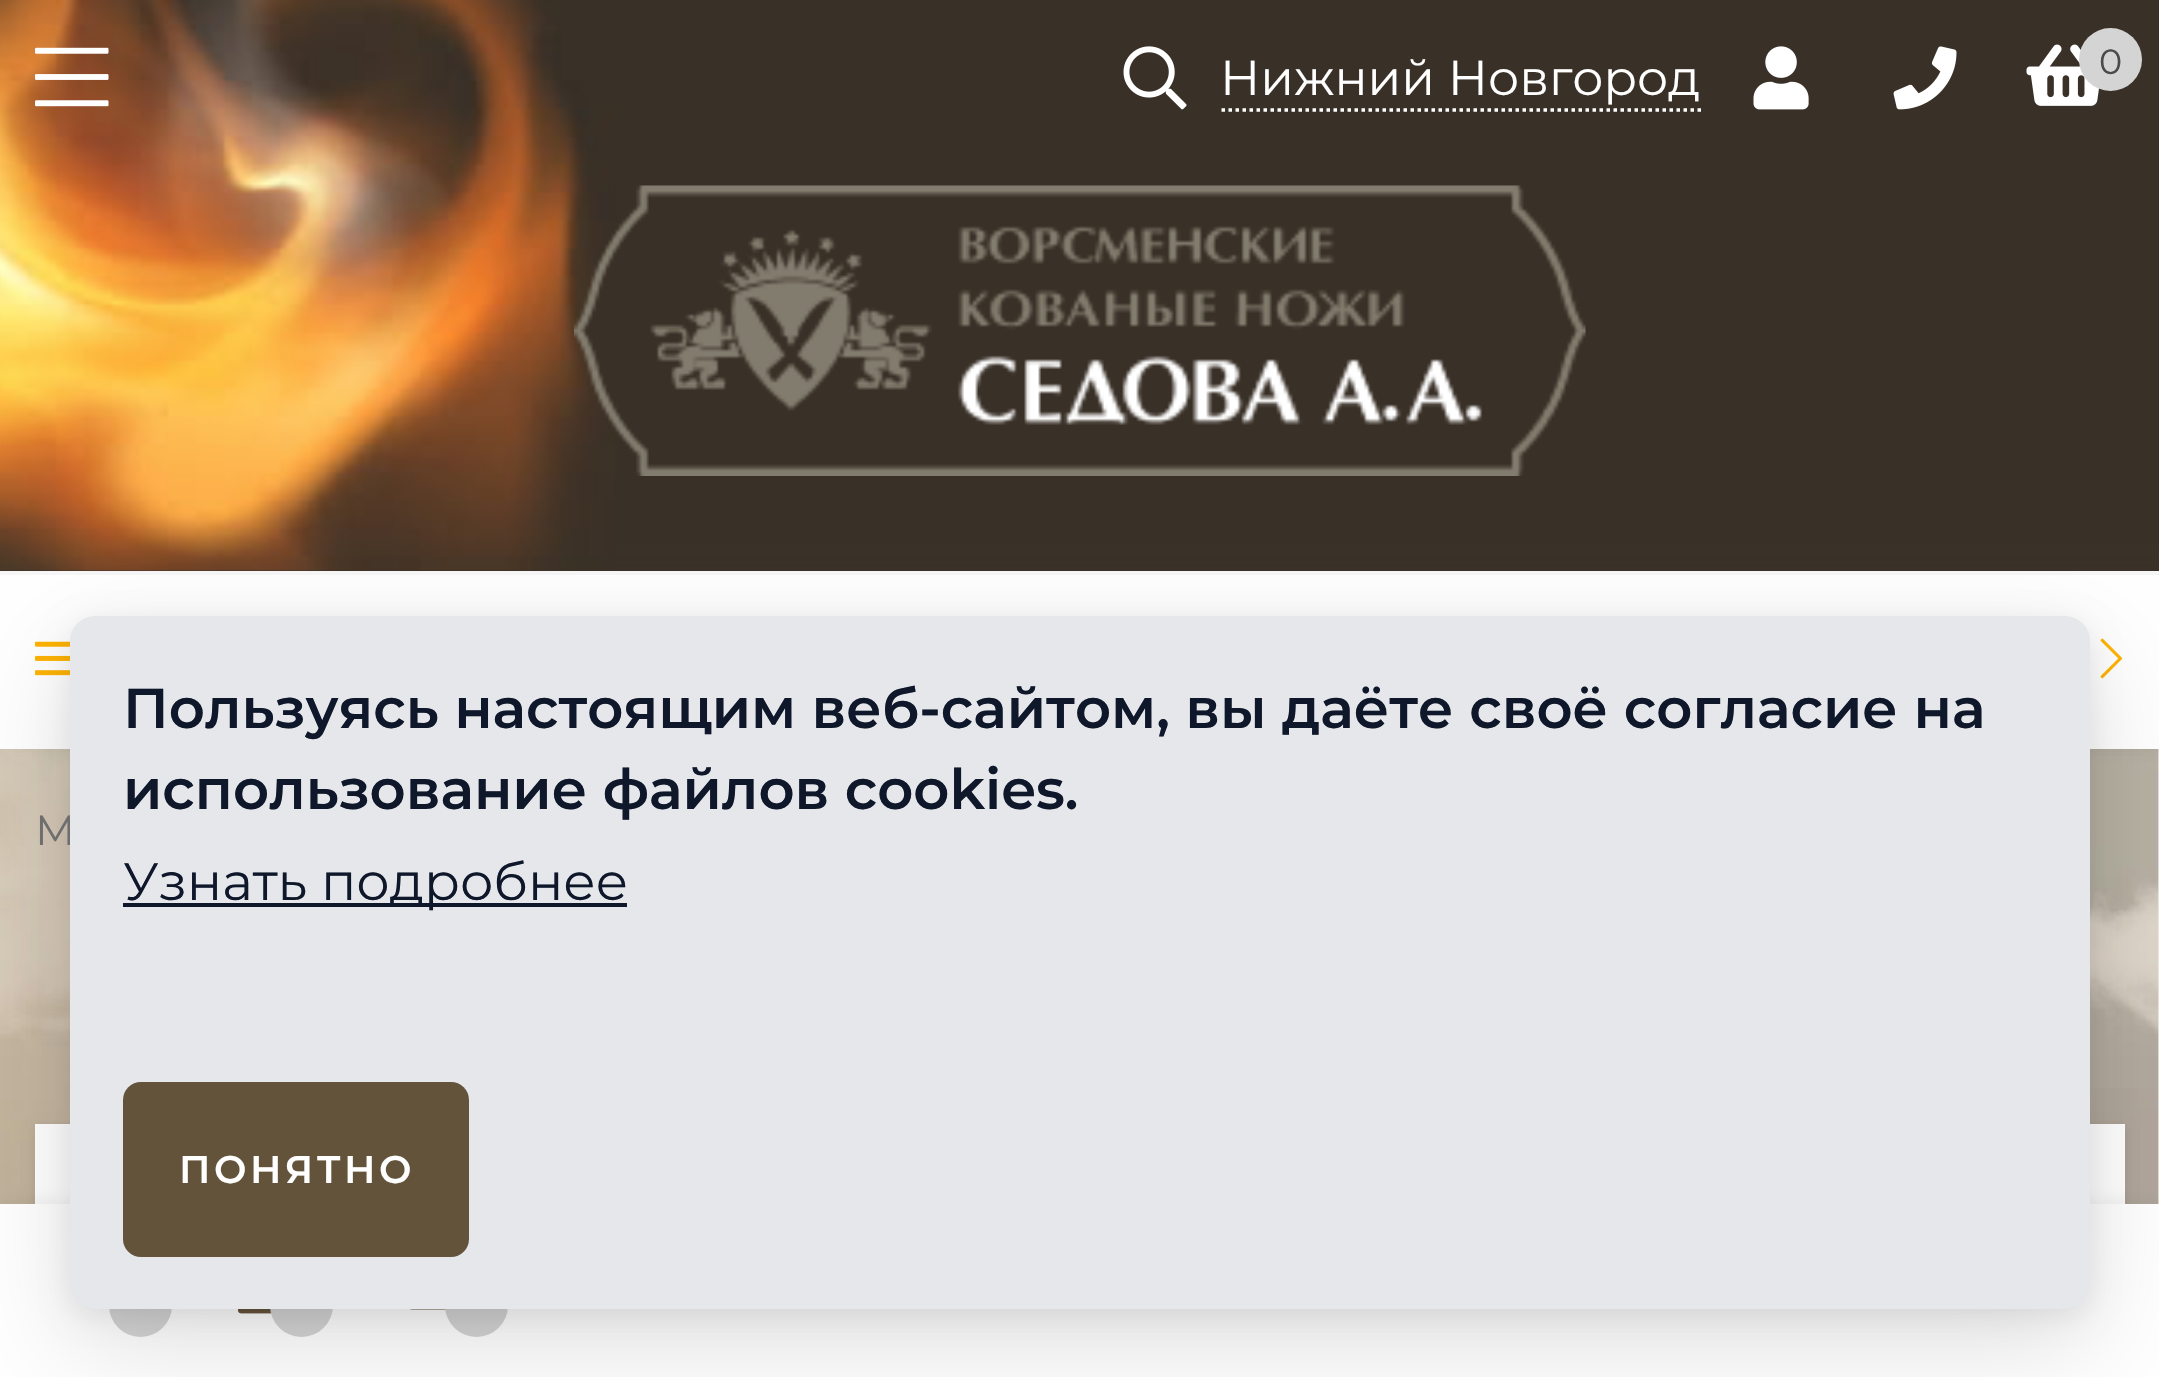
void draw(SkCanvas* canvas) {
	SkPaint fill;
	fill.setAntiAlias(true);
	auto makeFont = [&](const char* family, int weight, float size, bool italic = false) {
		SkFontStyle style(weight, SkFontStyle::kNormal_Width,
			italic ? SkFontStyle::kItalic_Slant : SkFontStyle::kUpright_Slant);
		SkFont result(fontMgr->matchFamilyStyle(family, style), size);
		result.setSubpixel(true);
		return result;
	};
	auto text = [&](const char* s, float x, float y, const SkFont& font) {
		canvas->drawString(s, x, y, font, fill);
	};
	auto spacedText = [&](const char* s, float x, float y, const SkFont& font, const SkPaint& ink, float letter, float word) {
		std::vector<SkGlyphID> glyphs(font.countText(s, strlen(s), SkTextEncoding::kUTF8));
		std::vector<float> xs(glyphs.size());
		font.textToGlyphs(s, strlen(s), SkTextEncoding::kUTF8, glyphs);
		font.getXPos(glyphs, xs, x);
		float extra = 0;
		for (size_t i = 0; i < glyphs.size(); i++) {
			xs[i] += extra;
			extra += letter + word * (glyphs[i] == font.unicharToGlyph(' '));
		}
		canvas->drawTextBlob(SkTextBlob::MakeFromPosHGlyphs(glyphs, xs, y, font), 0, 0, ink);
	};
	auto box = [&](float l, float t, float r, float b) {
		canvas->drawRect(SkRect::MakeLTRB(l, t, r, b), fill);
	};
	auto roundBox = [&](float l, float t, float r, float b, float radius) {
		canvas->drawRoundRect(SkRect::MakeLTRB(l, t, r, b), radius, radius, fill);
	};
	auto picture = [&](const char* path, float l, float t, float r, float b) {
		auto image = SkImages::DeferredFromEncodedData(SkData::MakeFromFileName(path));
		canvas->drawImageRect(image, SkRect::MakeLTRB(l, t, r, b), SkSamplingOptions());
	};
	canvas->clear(0xFFFFFFFF);
	picture("image0.png", 0, 749, 2159, 1204);
	fill.setColor(0xFF393027);
	box(0, 0, 2159, 571);
	fill.setColor(0x1A404040);
	fill.setMaskFilter(SkMaskFilter::MakeBlur(kNormal_SkBlurStyle, 9));
	canvas->drawRect(SkRect::MakeLTRB(0, 571, 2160, 749), fill);
	fill.setMaskFilter(nullptr);
	picture("image1.png", 0, 0, 617, 571);
	picture("image2.png", 574, 185, 1586, 476);
	picture("image3.png", 35, 47, 109, 107);
	picture("image4.png", 1123, 46, 1187, 110);
	fill.setStyle(SkPaint::kStroke_Style);
	fill.setStrokeWidth(3.5f);
	fill.setColor(0xFFFFFFFF);
	fill.setPathEffect(SkDashPathEffect::Make({{3.5f, 3.5f}}, 0));
	canvas->drawPath(SkPathBuilder().moveTo(1221.5f, 110).lineTo(1701, 110).detach(), fill);
	fill.setPathEffect(nullptr);
	picture("image5.png", 1753, 46, 1809, 110);
	picture("image6.png", 1893, 46, 1957, 110);
	picture("image7.png", 2026, 44, 2099, 106);
	fill.setStyle(SkPaint::kFill_Style);
	fill.setColor(0xFFD4D4D4);
	canvas->drawCircle(2110.5f, 59.5f, 31.5f, fill);
	fill.setColor(0xFFFFFFFF);
	box(0, 575, 2159, 749);
	fill.setColor(0xFFF7F7F7);
	box(0, 571, 2159, 575);
	picture("image8.png", 35, 641, 70, 676);
	picture("image9.png", 2100, 638, 2123, 679);
	fill.setColor(0x1A000000);
	fill.setMaskFilter(SkMaskFilter::MakeBlur(kNormal_SkBlurStyle, 5));
	canvas->drawRect(SkRect::MakeLTRB(35, 1127, 2125, 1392), fill);
	fill.setMaskFilter(nullptr);
	fill.setColor(0xFFFFFFFF);
	box(35, 1124, 2125, 1204);
	fill.setColor(0x1A404040);
	fill.setMaskFilter(SkMaskFilter::MakeBlur(kNormal_SkBlurStyle, 9));
	canvas->drawRect(SkRect::MakeLTRB(0, 1204, 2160, 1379), fill);
	fill.setMaskFilter(nullptr);
	fill.setColor(0xFFFFFFFF);
	box(0, 1204, 2159, 1377);
	fill.setColor(0xFFD4D4D4);
	canvas->drawCircle(140.5f, 1305.5f, 31.5f, fill);
	picture("image10.png", 238, 1309, 272, 1314);
	canvas->drawCircle(301.5f, 1305.5f, 31.5f, fill);
	picture("image11.png", 410, 1309, 446, 1310);
	canvas->drawCircle(476.5f, 1305.5f, 31.5f, fill);
	fill.setColor(0x14000000);
	fill.setMaskFilter(SkMaskFilter::MakeBlur(kNormal_SkBlurStyle, 14));
	canvas->drawRoundRect(SkRect::MakeLTRB(70, 623, 2090, 1316), 25, 25, fill);
	fill.setMaskFilter(nullptr);
	fill.setColor(0x1F000000);
	fill.setMaskFilter(SkMaskFilter::MakeBlur(kNormal_SkBlurStyle, 52.5f));
	canvas->drawRoundRect(SkRect::MakeLTRB(70, 651, 2090, 1344), 25, 25, fill);
	fill.setMaskFilter(nullptr);
	auto font1 = makeFont("Montserrat", 400, 49);
	fill.setColor(0xFFFFFFFF);
	text("Нижний Новгород", 1220, 95, font1);
	auto font2 = makeFont("Montserrat", 400, 35);
	fill.setColor(0xFF4A4A4A);
	text("0", 2099, 74, font2);
	auto font3 = makeFont("Montserrat", 400, 42);
	fill.setColor(0xFF6E6E6E);
	text("М", 35, 845, font3);
	fill.setColor(0xFFE5E7EB);
	roundBox(70, 616, 2090, 1309, 25);
	auto font4 = makeFont("Montserrat", 600, 56);
	fill.setColor(0xFF0F172A);
	text("Пользуясь настоящим веб-сайтом, вы даёте своё согласие на", 123, 728, font4);
	text("использование файлов cookies.", 123, 809, font4);
	box(123, 903, 627, 907);
	auto font5 = makeFont("Montserrat", 400, 52.5f);
	text("Узнать подробнее", 123, 900, font5);
	fill.setColor(0xFF63533A);
	roundBox(123, 1082, 469, 1257, 18);
	auto font6 = makeFont("Montserrat", 600, 38.5f);
	fill.setColor(0xFFFFFFFF);
	spacedText("ПОНЯТНО", 179, 1183, font6, fill, 3.5f, 0);
}
